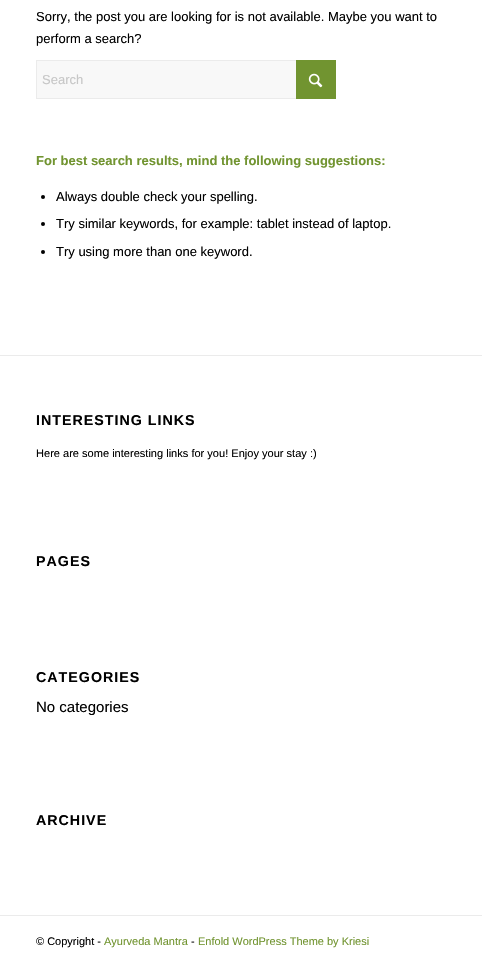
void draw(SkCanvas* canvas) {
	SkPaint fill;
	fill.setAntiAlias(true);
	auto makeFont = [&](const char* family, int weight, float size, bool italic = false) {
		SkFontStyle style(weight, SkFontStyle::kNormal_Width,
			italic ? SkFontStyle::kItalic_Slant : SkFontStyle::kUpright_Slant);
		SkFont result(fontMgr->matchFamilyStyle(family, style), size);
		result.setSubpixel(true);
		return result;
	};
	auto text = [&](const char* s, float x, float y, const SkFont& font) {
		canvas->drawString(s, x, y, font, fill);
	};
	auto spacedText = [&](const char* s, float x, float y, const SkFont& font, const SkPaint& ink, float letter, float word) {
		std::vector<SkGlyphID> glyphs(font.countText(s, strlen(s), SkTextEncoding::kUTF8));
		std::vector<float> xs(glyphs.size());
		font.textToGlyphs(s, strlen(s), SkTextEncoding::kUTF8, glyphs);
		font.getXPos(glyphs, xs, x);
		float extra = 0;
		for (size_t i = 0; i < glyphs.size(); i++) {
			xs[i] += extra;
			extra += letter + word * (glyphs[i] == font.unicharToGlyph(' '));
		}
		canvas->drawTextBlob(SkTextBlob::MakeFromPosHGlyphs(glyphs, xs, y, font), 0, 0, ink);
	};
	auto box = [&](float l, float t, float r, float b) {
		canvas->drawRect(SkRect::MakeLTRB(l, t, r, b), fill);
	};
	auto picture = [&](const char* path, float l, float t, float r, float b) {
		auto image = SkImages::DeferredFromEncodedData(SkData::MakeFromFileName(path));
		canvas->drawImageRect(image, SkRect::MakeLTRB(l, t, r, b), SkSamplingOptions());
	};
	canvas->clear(0xFFFFFFFF);
	fill.setColor(0xFFF8F8F8);
	box(37, 61, 296, 98);
	fill.setStyle(SkPaint::kStroke_Style);
	fill.setStrokeWidth(1);
	fill.setColor(0xFFEBEBEB);
	canvas->drawRect(SkRect::MakeLTRB(36.5f, 60.5f, 335.5f, 98.5f), fill);
	fill.setStyle(SkPaint::kFill_Style);
	fill.setColor(0xFF719430);
	box(296, 60, 336, 99);
	picture("image0.png", 308, 73, 323, 88);
	fill.setColor(0xFF000000);
	canvas->drawCircle(43, 197, 2, fill);
	canvas->drawCircle(43, 224, 2, fill);
	canvas->drawCircle(43, 252, 2, fill);
	fill.setColor(0xFFEBEBEB);
	box(0, 355, 482, 356);
	box(0, 915, 482, 916);
	auto font1 = makeFont("Liberation Sans", 400, 13);
	fill.setColor(0xFF000000);
	text("Sorry, the post you are looking for is not available. Maybe you want to", 36, 21, font1);
	text("perform a search?", 36, 43, font1);
	fill.setColor(0xFFC7C7C7);
	text("Search", 42, 84, font1);
	auto font2 = makeFont("Liberation Sans", 700, 13);
	fill.setColor(0xFF719430);
	text("For best search results, mind the following suggestions:", 36, 165, font2);
	fill.setColor(0xFF000000);
	text("Always double check your spelling.", 56, 201, font1);
	text("Try similar keywords, for example: tablet instead of laptop.", 56, 228, font1);
	text("Try using more than one keyword.", 56, 256, font1);
	auto font3 = makeFont("Liberation Sans", 700, 14.25f);
	spacedText("INTERESTING LINKS", 36, 425, font3, fill, 1, 0);
	auto font4 = makeFont("Liberation Sans", 400, 11.05f);
	text("Here are some interesting links for you! Enjoy your stay :)", 36, 457, font4);
	spacedText("PAGES", 36, 566, font3, fill, 1, 0);
	spacedText("CATEGORIES", 36, 682, font3, fill, 1, 0);
	auto font5 = makeFont("Liberation Sans", 400, 15);
	text("No categories", 36, 712, font5);
	spacedText("ARCHIVE", 36, 825, font3, fill, 1, 0);
	auto font6 = makeFont("Liberation Sans", 400, 11);
	text("© Copyright -", 36, 945, font6);
	fill.setColor(0xFF719430);
	text("Ayurveda Mantra", 104, 945, font6);
	fill.setColor(0xFF000000);
	text("-", 191, 945, font6);
	fill.setColor(0xFF719430);
	text("Enfold WordPress Theme by Kriesi", 198, 945, font6);
}
